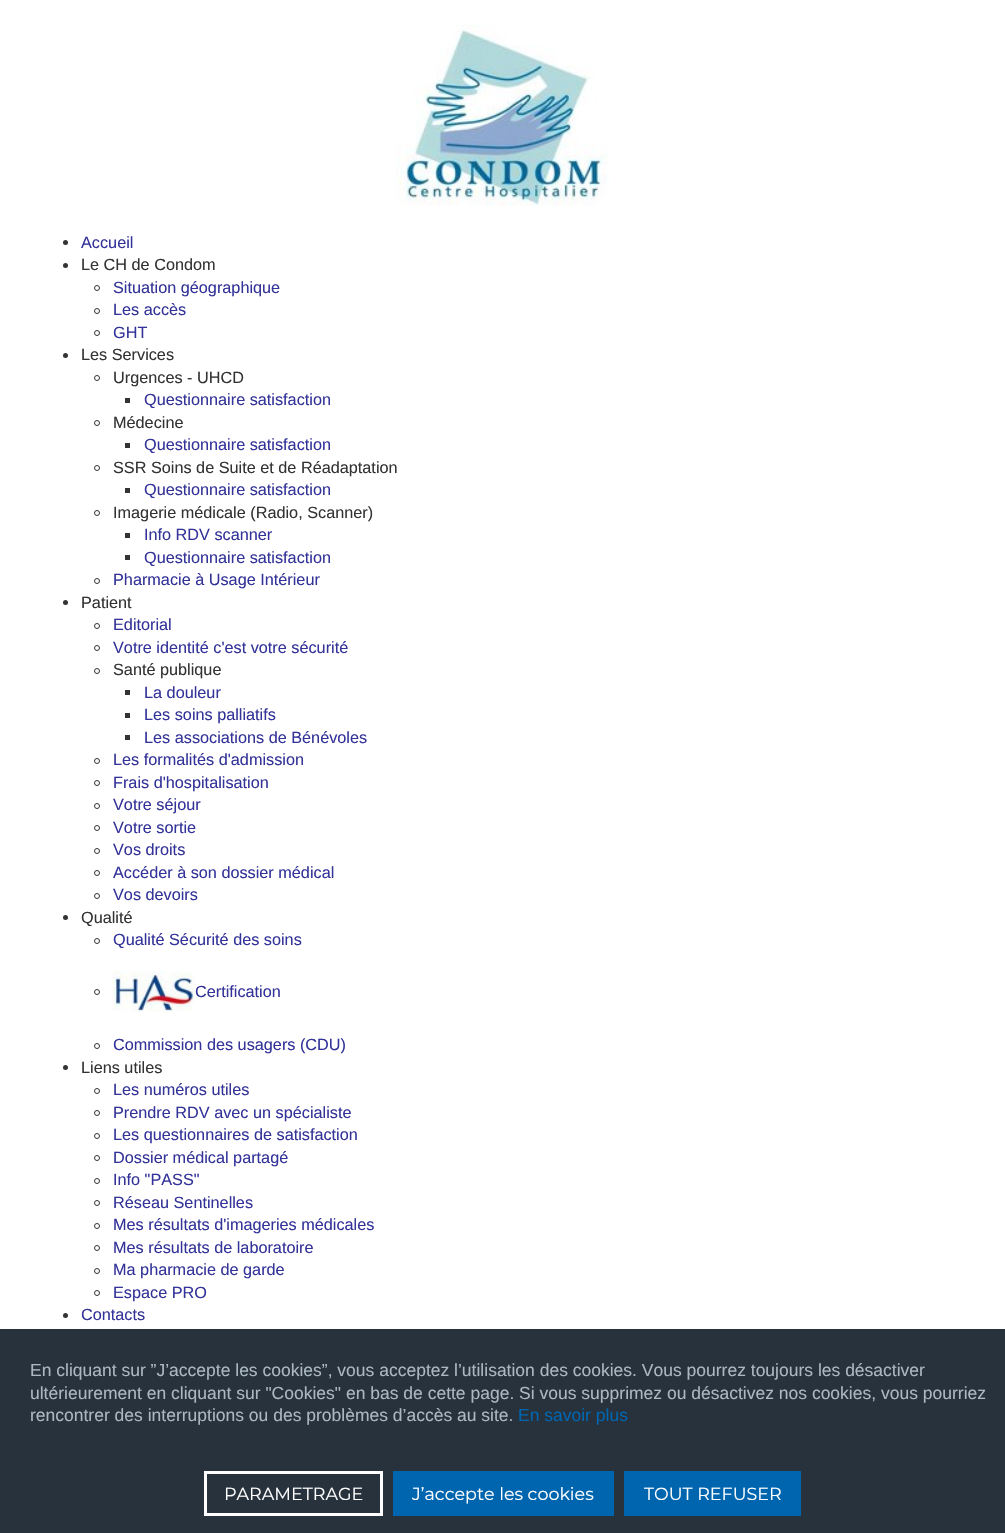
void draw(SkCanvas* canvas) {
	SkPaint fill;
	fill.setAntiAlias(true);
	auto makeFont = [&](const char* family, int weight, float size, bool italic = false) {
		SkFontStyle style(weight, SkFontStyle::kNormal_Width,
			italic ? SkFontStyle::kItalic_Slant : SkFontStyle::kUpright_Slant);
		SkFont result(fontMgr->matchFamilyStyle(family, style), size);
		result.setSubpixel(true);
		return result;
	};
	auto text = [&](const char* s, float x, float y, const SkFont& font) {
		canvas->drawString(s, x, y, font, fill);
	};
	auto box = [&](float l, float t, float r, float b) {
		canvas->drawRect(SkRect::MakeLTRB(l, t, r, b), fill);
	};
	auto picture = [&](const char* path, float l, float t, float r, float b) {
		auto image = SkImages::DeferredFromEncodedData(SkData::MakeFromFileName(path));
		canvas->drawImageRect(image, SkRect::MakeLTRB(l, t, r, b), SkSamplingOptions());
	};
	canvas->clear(0xFFFFFFFF);
	picture("image0.png", 396, 25, 609, 206);
	fill.setColor(0xFF333333);
	canvas->drawCircle(65.5f, 242.5f, 2.5f, fill);
	canvas->drawCircle(65.5f, 265.5f, 2.5f, fill);
	fill.setStyle(SkPaint::kStroke_Style);
	fill.setStrokeWidth(1);
	canvas->drawCircle(97, 288, 2.5f, fill);
	canvas->drawCircle(97, 311, 2.5f, fill);
	canvas->drawCircle(97, 333, 2.5f, fill);
	fill.setStyle(SkPaint::kFill_Style);
	canvas->drawCircle(65.5f, 355.5f, 2.5f, fill);
	fill.setStyle(SkPaint::kStroke_Style);
	canvas->drawCircle(97, 378, 2.5f, fill);
	fill.setStyle(SkPaint::kFill_Style);
	box(125, 398, 130, 403);
	fill.setStyle(SkPaint::kStroke_Style);
	canvas->drawCircle(97, 423, 2.5f, fill);
	fill.setStyle(SkPaint::kFill_Style);
	box(125, 443, 130, 448);
	fill.setStyle(SkPaint::kStroke_Style);
	canvas->drawCircle(97, 468, 2.5f, fill);
	fill.setStyle(SkPaint::kFill_Style);
	box(125, 488, 130, 493);
	fill.setStyle(SkPaint::kStroke_Style);
	canvas->drawCircle(97, 513, 2.5f, fill);
	fill.setStyle(SkPaint::kFill_Style);
	box(125, 533, 130, 538);
	box(125, 555, 130, 560);
	fill.setStyle(SkPaint::kStroke_Style);
	canvas->drawCircle(97, 581, 2.5f, fill);
	fill.setStyle(SkPaint::kFill_Style);
	canvas->drawCircle(65.5f, 602.5f, 2.5f, fill);
	fill.setStyle(SkPaint::kStroke_Style);
	canvas->drawCircle(97, 626, 2.5f, fill);
	canvas->drawCircle(97, 648, 2.5f, fill);
	canvas->drawCircle(97, 671, 2.5f, fill);
	fill.setStyle(SkPaint::kFill_Style);
	box(125, 690, 130, 695);
	box(125, 713, 130, 718);
	box(125, 735, 130, 740);
	fill.setStyle(SkPaint::kStroke_Style);
	canvas->drawCircle(97, 761, 2.5f, fill);
	canvas->drawCircle(97, 783, 2.5f, fill);
	canvas->drawCircle(97, 806, 2.5f, fill);
	canvas->drawCircle(97, 828, 2.5f, fill);
	canvas->drawCircle(97, 851, 2.5f, fill);
	canvas->drawCircle(97, 873, 2.5f, fill);
	canvas->drawCircle(97, 896, 2.5f, fill);
	fill.setStyle(SkPaint::kFill_Style);
	canvas->drawCircle(65.5f, 917.5f, 2.5f, fill);
	fill.setStyle(SkPaint::kStroke_Style);
	canvas->drawCircle(97, 941, 2.5f, fill);
	canvas->drawCircle(97, 992, 2.5f, fill);
	picture("image1.png", 112, 971, 195, 1012);
	canvas->drawCircle(97, 1046, 2.5f, fill);
	fill.setStyle(SkPaint::kFill_Style);
	canvas->drawCircle(65.5f, 1067.5f, 2.5f, fill);
	fill.setStyle(SkPaint::kStroke_Style);
	canvas->drawCircle(97, 1091, 2.5f, fill);
	canvas->drawCircle(97, 1113, 2.5f, fill);
	canvas->drawCircle(97, 1136, 2.5f, fill);
	canvas->drawCircle(97, 1158, 2.5f, fill);
	canvas->drawCircle(97, 1181, 2.5f, fill);
	canvas->drawCircle(97, 1203, 2.5f, fill);
	canvas->drawCircle(97, 1226, 2.5f, fill);
	canvas->drawCircle(97, 1248, 2.5f, fill);
	canvas->drawCircle(97, 1271, 2.5f, fill);
	canvas->drawCircle(97, 1293, 2.5f, fill);
	fill.setStyle(SkPaint::kFill_Style);
	canvas->drawCircle(65.5f, 1315.5f, 2.5f, fill);
	fill.setColor(0xFF27323D);
	box(0, 1329, 1005, 1533);
	fill.setStyle(SkPaint::kStroke_Style);
	fill.setStrokeWidth(3);
	fill.setColor(0xFFFFFFFF);
	canvas->drawRect(SkRect::MakeLTRB(205.5f, 1472.5f, 381.5f, 1514.5f), fill);
	fill.setStyle(SkPaint::kFill_Style);
	fill.setColor(0xFF0065AF);
	box(393, 1471, 614, 1516);
	box(624, 1471, 801, 1516);
	auto font1 = makeFont("Liberation Sans", 400, 16.25f);
	fill.setColor(0xFF333399);
	text("Accueil", 81, 248, font1);
	fill.setColor(0xFF333333);
	text("Le CH de Condom", 81, 270, font1);
	fill.setColor(0xFF333399);
	text("Situation géographique", 113, 293, font1);
	text("Les accès", 113, 315, font1);
	text("GHT", 113, 338, font1);
	fill.setColor(0xFF333333);
	text("Les Services", 81, 360, font1);
	text("Urgences - UHCD", 113, 383, font1);
	fill.setColor(0xFF333399);
	text("Questionnaire satisfaction", 144, 405, font1);
	fill.setColor(0xFF333333);
	text("Médecine", 113, 428, font1);
	fill.setColor(0xFF333399);
	text("Questionnaire satisfaction", 144, 450, font1);
	fill.setColor(0xFF333333);
	text("SSR Soins de Suite et de Réadaptation", 113, 473, font1);
	fill.setColor(0xFF333399);
	text("Questionnaire satisfaction", 144, 495, font1);
	fill.setColor(0xFF333333);
	text("Imagerie médicale (Radio, Scanner)", 113, 518, font1);
	fill.setColor(0xFF333399);
	text("Info RDV scanner", 144, 540, font1);
	text("Questionnaire satisfaction", 144, 563, font1);
	text("Pharmacie à Usage Intérieur", 113, 585, font1);
	fill.setColor(0xFF333333);
	text("Patient", 81, 608, font1);
	fill.setColor(0xFF333399);
	text("Editorial", 113, 630, font1);
	text("Votre identité c'est votre sécurité", 113, 653, font1);
	fill.setColor(0xFF333333);
	text("Santé publique", 113, 675, font1);
	fill.setColor(0xFF333399);
	text("La douleur", 144, 698, font1);
	text("Les soins palliatifs", 144, 720, font1);
	text("Les associations de Bénévoles", 144, 743, font1);
	text("Les formalités d'admission", 113, 765, font1);
	text("Frais d'hospitalisation", 113, 788, font1);
	text("Votre séjour", 113, 810, font1);
	text("Votre sortie", 113, 833, font1);
	text("Vos droits", 113, 855, font1);
	text("Accéder à son dossier médical", 113, 878, font1);
	text("Vos devoirs", 113, 900, font1);
	fill.setColor(0xFF333333);
	text("Qualité", 81, 923, font1);
	fill.setColor(0xFF333399);
	text("Qualité Sécurité des soins", 113, 945, font1);
	text("Certification", 195, 997, font1);
	text("Commission des usagers (CDU)", 113, 1050, font1);
	fill.setColor(0xFF333333);
	text("Liens utiles", 81, 1073, font1);
	fill.setColor(0xFF333399);
	text("Les numéros utiles", 113, 1095, font1);
	text("Prendre RDV avec un spécialiste", 113, 1118, font1);
	text("Les questionnaires de satisfaction", 113, 1140, font1);
	text("Dossier médical partagé", 113, 1163, font1);
	text("Info \"PASS\"", 113, 1185, font1);
	text("Réseau Sentinelles", 113, 1208, font1);
	text("Mes résultats d'imageries médicales", 113, 1230, font1);
	text("Mes résultats de laboratoire", 113, 1253, font1);
	text("Ma pharmacie de garde", 113, 1275, font1);
	text("Espace PRO", 113, 1298, font1);
	text("Contacts", 81, 1320, font1);
	auto font2 = makeFont("Liberation Sans", 400, 17.5f);
	fill.setColor(0xFFACB8C1);
	text("En cliquant sur ”J’accepte les cookies”, vous acceptez l’utilisation des cookies. Vous pourrez toujours les désactiver", 30, 1376, font2);
	text("ultérieurement en cliquant sur \"Cookies\" en bas de cette page. Si vous supprimez ou désactivez nos cookies, vous pourriez", 30, 1399, font2);
	text("rencontrer des interruptions ou des problèmes d’accès au site.", 30, 1421, font2);
	fill.setColor(0xFF0065AF);
	text("En savoir plus", 518, 1421, font2);
	auto font3 = makeFont("Montserrat", 400, 17.5f);
	fill.setColor(0xFFFFFFFF);
	text("PARAMETRAGE", 224, 1500, font3);
	text("J’accepte les cookies", 412, 1500, font3);
	text("TOUT REFUSER", 644, 1500, font3);
}
